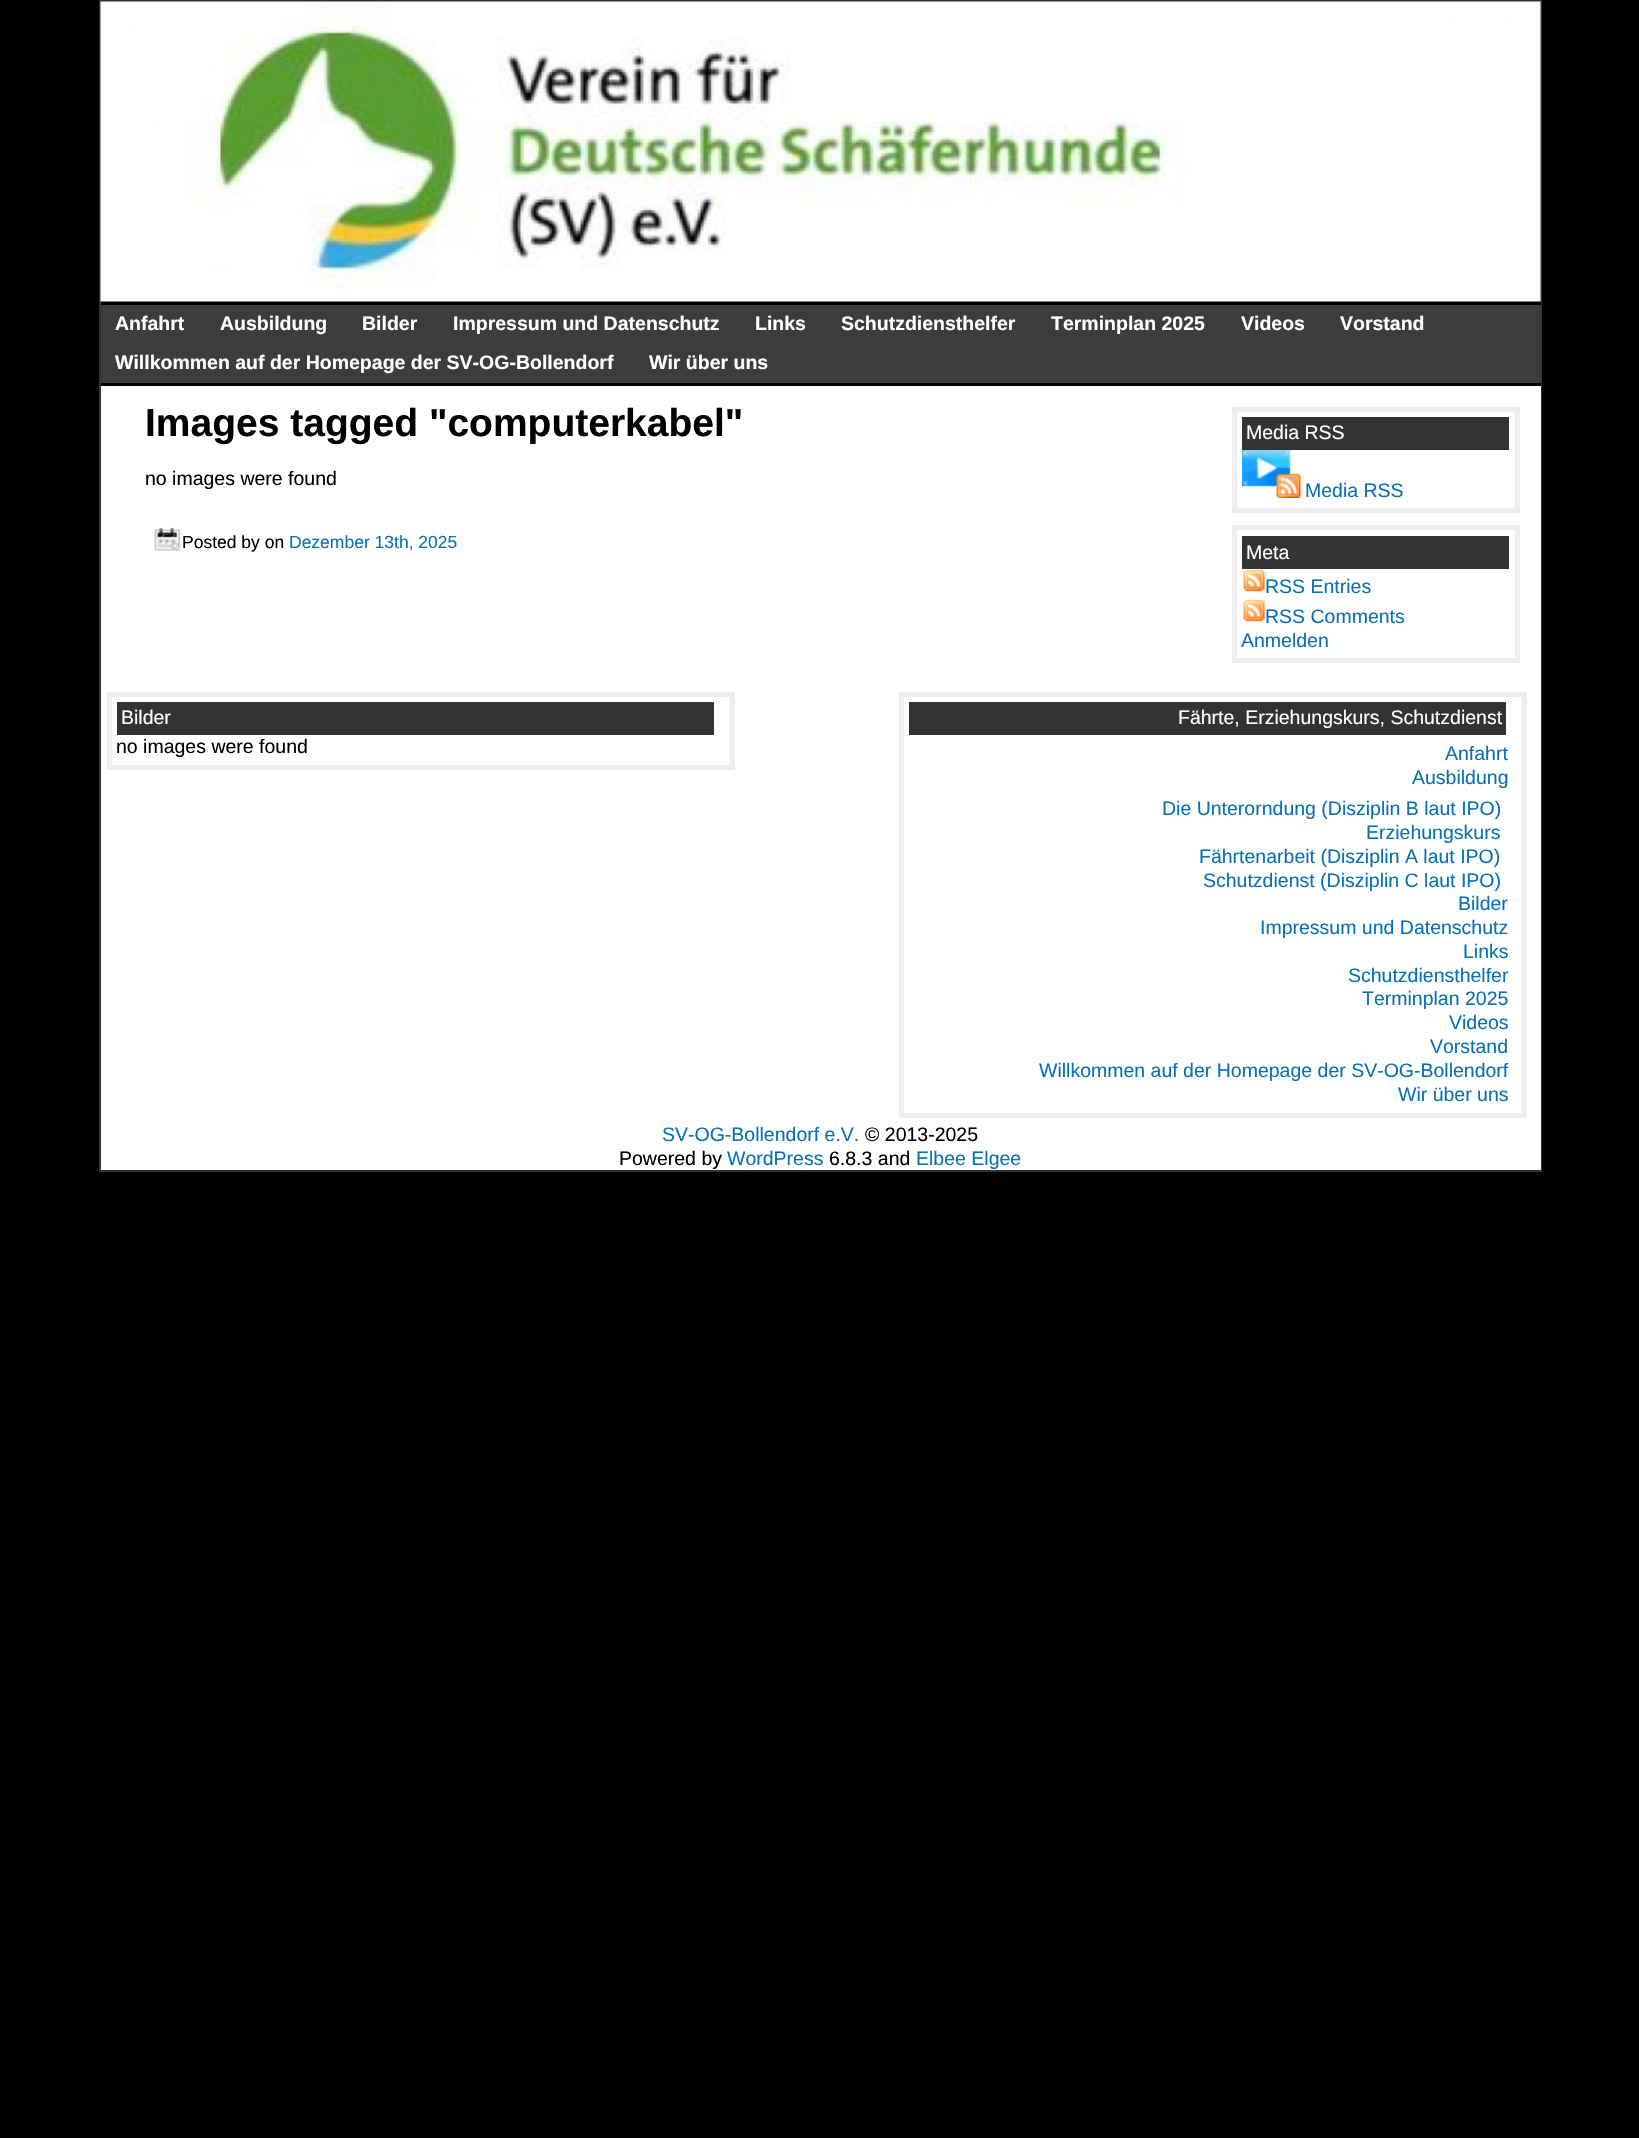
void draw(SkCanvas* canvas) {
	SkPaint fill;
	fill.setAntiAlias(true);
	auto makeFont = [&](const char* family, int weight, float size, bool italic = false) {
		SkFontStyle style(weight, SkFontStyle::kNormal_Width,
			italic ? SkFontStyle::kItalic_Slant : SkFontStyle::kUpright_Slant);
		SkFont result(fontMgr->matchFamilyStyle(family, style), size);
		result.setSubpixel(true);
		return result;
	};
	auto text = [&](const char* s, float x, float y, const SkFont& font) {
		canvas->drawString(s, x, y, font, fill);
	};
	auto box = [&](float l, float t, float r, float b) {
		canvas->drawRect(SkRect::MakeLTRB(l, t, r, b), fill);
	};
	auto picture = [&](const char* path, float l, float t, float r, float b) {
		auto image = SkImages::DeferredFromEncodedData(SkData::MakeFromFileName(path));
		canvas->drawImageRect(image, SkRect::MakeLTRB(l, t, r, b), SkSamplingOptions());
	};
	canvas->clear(0xFF000000);
	fill.setStyle(SkPaint::kStroke_Style);
	fill.setStrokeWidth(2);
	fill.setColor(0xFF333333);
	canvas->drawRect(SkRect::MakeLTRB(100, 1, 1541, 1171), fill);
	picture("image0.png", 100, 1, 1541, 302);
	fill.setStyle(SkPaint::kFill_Style);
	fill.setColor(0xFF3C3C3C);
	box(101, 305, 1541, 383);
	fill.setColor(0xFF000000);
	box(1540, 302, 1541, 305);
	box(1540, 383, 1541, 386);
	fill.setColor(0xFFFFFFFF);
	box(101, 386, 1541, 1170);
	picture("image1.png", 154, 527, 181, 551);
	fill.setStyle(SkPaint::kStroke_Style);
	fill.setStrokeWidth(5);
	fill.setColor(0xFFEEEEEE);
	canvas->drawRect(SkRect::MakeLTRB(1234.5f, 409.5f, 1517.5f, 510.5f), fill);
	fill.setStyle(SkPaint::kFill_Style);
	fill.setColor(0xFF333333);
	box(1242, 417, 1509, 450);
	picture("image2.png", 1242, 450, 1301, 498);
	fill.setStyle(SkPaint::kStroke_Style);
	fill.setColor(0xFFEEEEEE);
	canvas->drawRect(SkRect::MakeLTRB(1234.5f, 527.5f, 1517.5f, 660.5f), fill);
	fill.setStyle(SkPaint::kFill_Style);
	fill.setColor(0xFF333333);
	box(1242, 536, 1509, 569);
	picture("image3.png", 1243, 569, 1265, 592);
	picture("image3.png", 1243, 599, 1265, 622);
	fill.setStyle(SkPaint::kStroke_Style);
	fill.setColor(0xFFEEEEEE);
	canvas->drawRect(SkRect::MakeLTRB(109.5f, 694.5f, 732.5f, 767.5f), fill);
	fill.setStyle(SkPaint::kFill_Style);
	fill.setColor(0xFF333333);
	box(117, 702, 714, 735);
	fill.setStyle(SkPaint::kStroke_Style);
	fill.setColor(0xFFEEEEEE);
	canvas->drawRect(SkRect::MakeLTRB(901.5f, 694.5f, 1524.5f, 1115.5f), fill);
	fill.setStyle(SkPaint::kFill_Style);
	fill.setColor(0xFF333333);
	box(909, 702, 1506, 735);
	auto font1 = makeFont("Liberation Sans", 700, 19.5f);
	fill.setColor(0xFFFFFFFF);
	text("Anfahrt", 115, 330, font1);
	text("Ausbildung", 220, 330, font1);
	text("Bilder", 362, 330, font1);
	text("Impressum und Datenschutz", 453, 330, font1);
	text("Links", 755, 330, font1);
	text("Schutzdiensthelfer", 841, 330, font1);
	text("Terminplan 2025", 1051, 330, font1);
	text("Videos", 1241, 330, font1);
	text("Vorstand", 1340, 330, font1);
	text("Willkommen auf der Homepage der SV-OG-Bollendorf", 115, 369, font1);
	text("Wir über uns", 649, 369, font1);
	auto font2 = makeFont("Liberation Sans", 700, 39);
	fill.setColor(0xFF000000);
	text("Images tagged \"computerkabel\"", 145, 436, font2);
	auto font3 = makeFont("Liberation Sans", 400, 19.5f);
	text("no images were found", 145, 485, font3);
	auto font4 = makeFont("Liberation Sans", 400, 17.5f);
	text("Posted by on", 182, 548, font4);
	fill.setColor(0xFF0971B3);
	text("Dezember 13th, 2025", 289, 548, font4);
	fill.setColor(0xFFFFFFFF);
	text("Media RSS", 1246, 439, font3);
	fill.setColor(0xFF0971B3);
	text("Media RSS", 1305, 497, font3);
	fill.setColor(0xFFFFFFFF);
	text("Meta", 1246, 559, font3);
	fill.setColor(0xFF0971B3);
	text("RSS Entries", 1265, 593, font3);
	text("RSS Comments", 1265, 623, font3);
	text("Anmelden", 1241, 647, font3);
	fill.setColor(0xFFFFFFFF);
	text("Bilder", 121, 724, font3);
	fill.setColor(0xFF000000);
	text("no images were found", 116, 753, font3);
	fill.setColor(0xFFFFFFFF);
	text("Fährte, Erziehungskurs, Schutzdienst", 1178, 724, font3);
	fill.setColor(0xFF0971B3);
	text("Anfahrt", 1445, 760, font3);
	text("Ausbildung", 1412, 784, font3);
	text("Die Unterorndung (Disziplin B laut IPO)", 1162, 815, font3);
	text("Erziehungskurs", 1366, 839, font3);
	text("Fährtenarbeit (Disziplin A laut IPO)", 1199, 863, font3);
	text("Schutzdienst (Disziplin C laut IPO)", 1203, 887, font3);
	text("Bilder", 1458, 910, font3);
	text("Impressum und Datenschutz", 1260, 934, font3);
	text("Links", 1463, 958, font3);
	text("Schutzdiensthelfer", 1348, 982, font3);
	text("Terminplan 2025", 1362, 1005, font3);
	text("Videos", 1449, 1029, font3);
	text("Vorstand", 1430, 1053, font3);
	text("Willkommen auf der Homepage der SV-OG-Bollendorf", 1039, 1077, font3);
	text("Wir über uns", 1398, 1101, font3);
	text("SV-OG-Bollendorf e.V.", 662, 1141, font3);
	fill.setColor(0xFF000000);
	text("© 2013-2025", 865, 1141, font3);
	text("Powered by", 619, 1165, font3);
	fill.setColor(0xFF0971B3);
	text("WordPress", 727, 1165, font3);
	fill.setColor(0xFF000000);
	text("6.8.3 and", 829, 1165, font3);
	fill.setColor(0xFF0971B3);
	text("Elbee Elgee", 916, 1165, font3);
}
